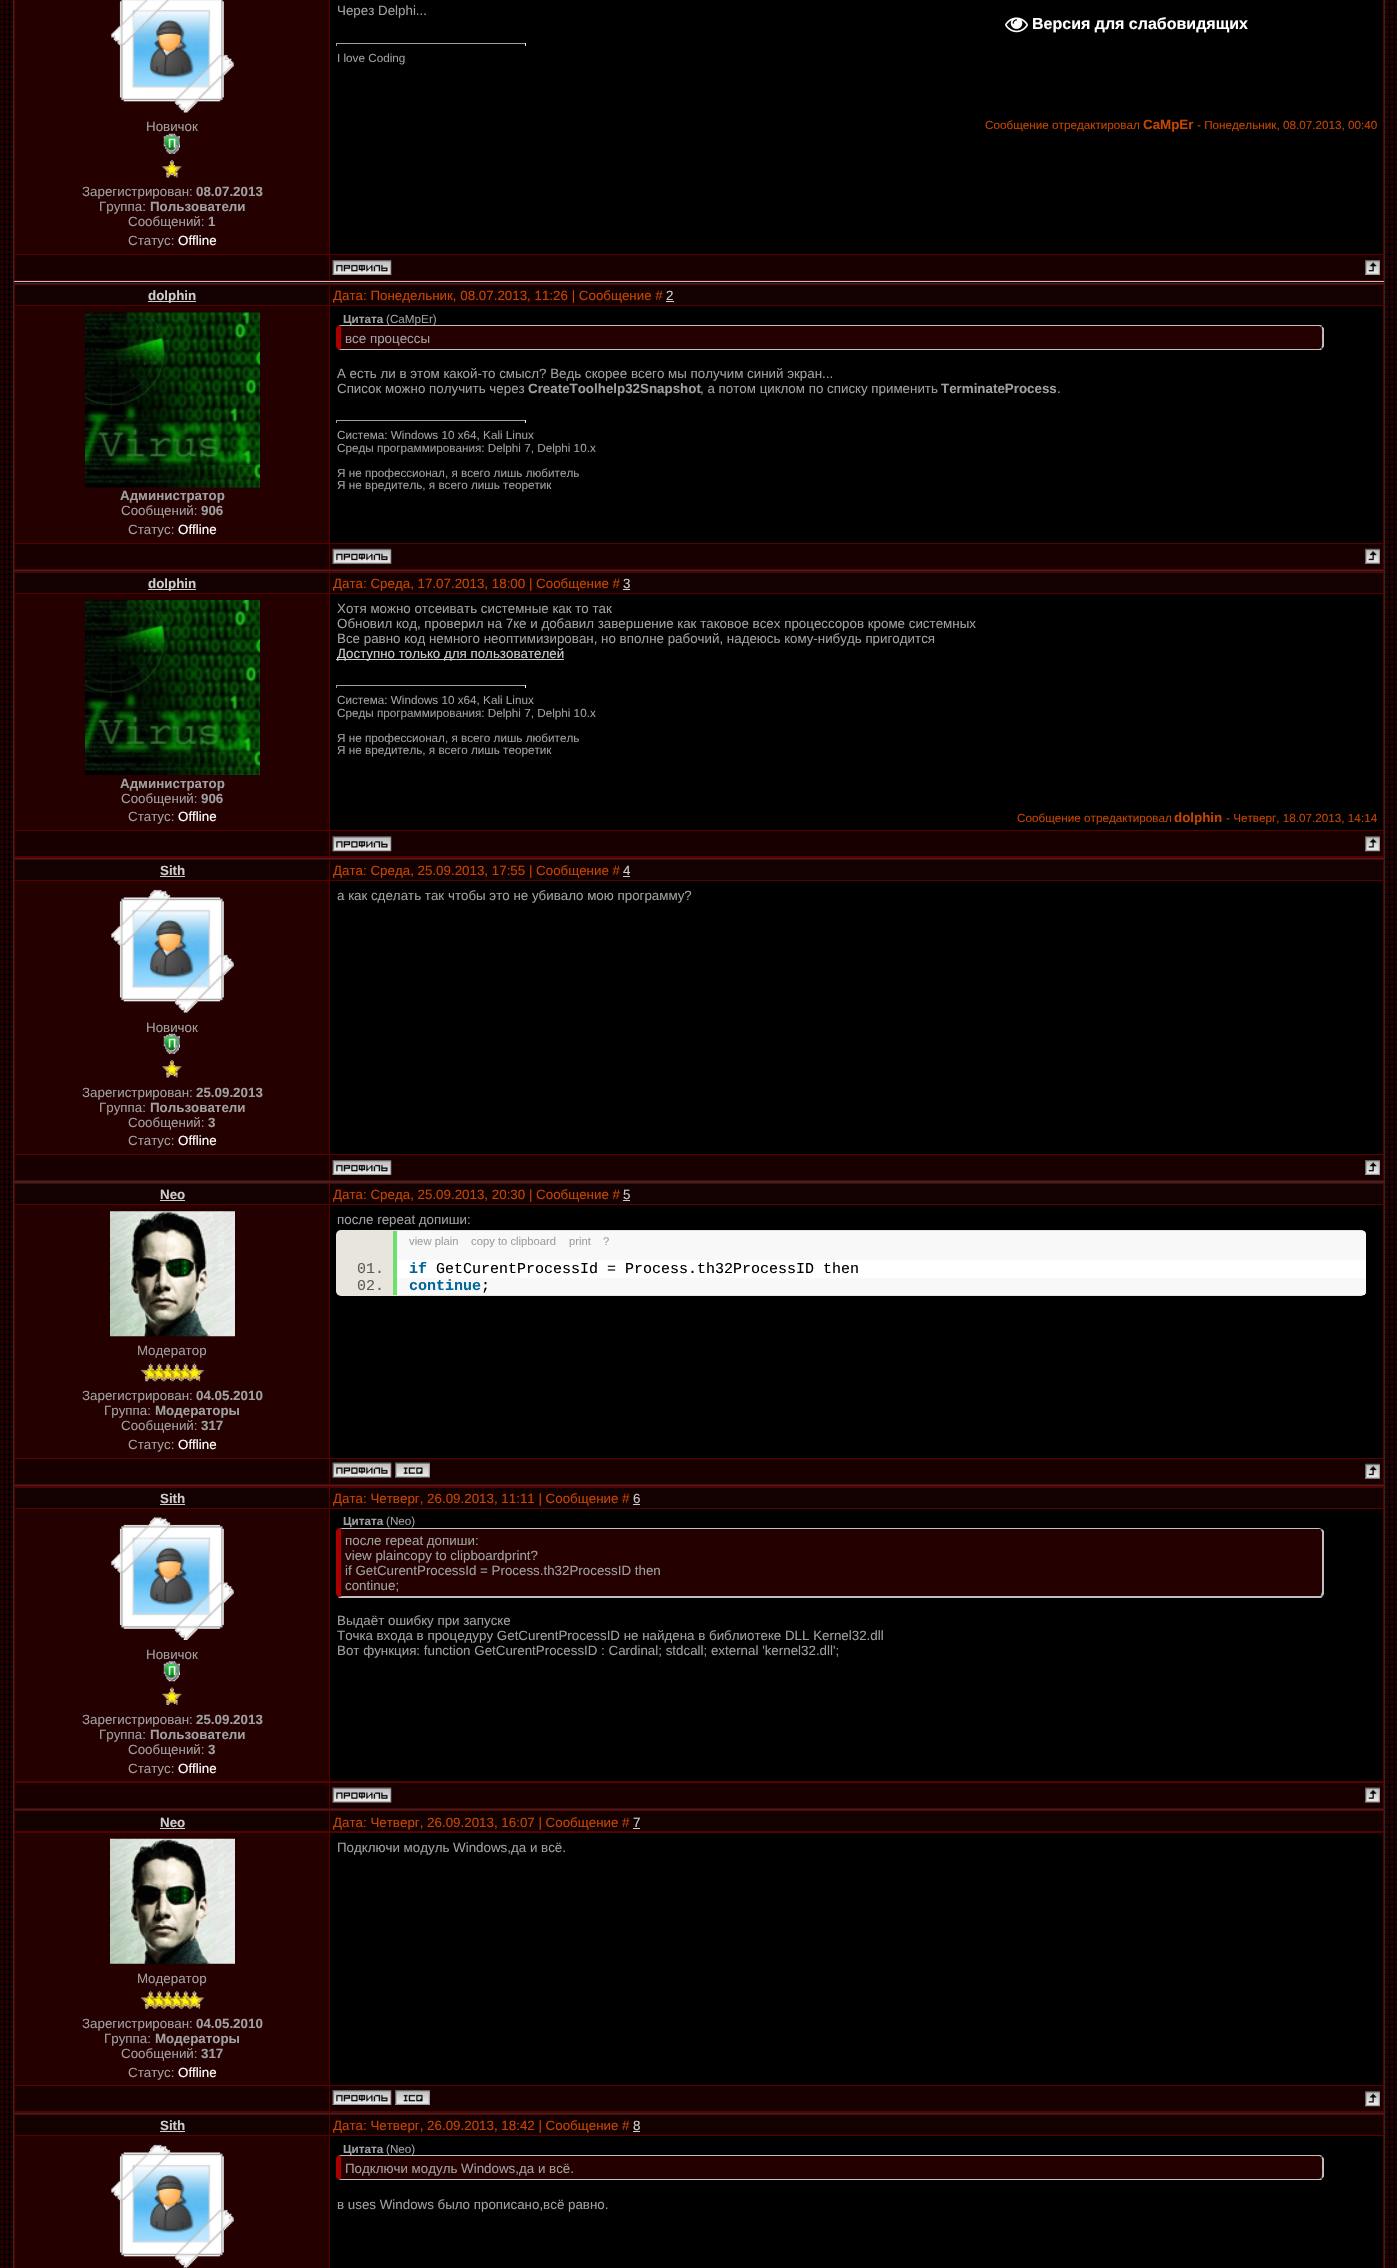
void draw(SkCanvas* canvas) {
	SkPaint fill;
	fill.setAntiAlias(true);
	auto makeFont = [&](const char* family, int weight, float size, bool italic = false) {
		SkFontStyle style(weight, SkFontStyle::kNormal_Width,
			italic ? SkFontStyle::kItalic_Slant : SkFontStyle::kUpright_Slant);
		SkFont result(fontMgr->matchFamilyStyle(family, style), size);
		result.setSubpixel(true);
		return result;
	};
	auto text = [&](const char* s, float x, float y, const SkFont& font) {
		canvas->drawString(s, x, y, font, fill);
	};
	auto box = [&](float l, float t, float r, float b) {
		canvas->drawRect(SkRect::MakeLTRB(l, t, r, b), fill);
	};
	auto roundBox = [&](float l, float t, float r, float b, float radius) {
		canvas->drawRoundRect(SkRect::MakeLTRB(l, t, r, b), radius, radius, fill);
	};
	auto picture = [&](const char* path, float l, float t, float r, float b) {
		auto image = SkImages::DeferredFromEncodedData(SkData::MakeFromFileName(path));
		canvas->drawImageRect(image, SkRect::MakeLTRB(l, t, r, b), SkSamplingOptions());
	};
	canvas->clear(0xFFFFFFFF);
	picture("image0.png", 0, 0, 1397, 2268);
	fill.setColor(0xFF2B2B2B);
	box(13, 0, 1385, 2268);
	fill.setColor(0xFF240000);
	box(14, 282, 1384, 283);
	fill.setColor(0xFFC0C0C0);
	box(14, 281, 1384, 282);
	fill.setColor(0xFF570000);
	box(14, 0, 1384, 281);
	fill.setColor(0xFF000000);
	box(330, 0, 1383, 254);
	fill.setColor(0xFF9F9F9F);
	box(336, 43, 526, 44);
	fill.setColor(0xFFEEEEEE);
	box(525, 43, 526, 46);
	fill.setColor(0xFF9F9F9F);
	box(336, 43, 337, 46);
	fill.setColor(0xFF240000);
	box(15, 0, 329, 254);
	picture("image1.png", 111, 0, 234, 113);
	picture("image2.png", 163, 133, 180, 154);
	picture("image3.png", 162, 160, 182, 178);
	fill.setColor(0xFF180000);
	box(15, 255, 329, 280);
	box(330, 255, 1383, 280);
	picture("image4.png", 332, 260, 392, 275);
	picture("image5.png", 1365, 260, 1380, 275);
	fill.setColor(0xFF570000);
	box(14, 284, 1384, 570);
	fill.setColor(0xFF130001);
	box(15, 285, 329, 305);
	fill.setColor(0xFFCCCCCC);
	box(148, 301, 196, 302);
	fill.setColor(0xFF130001);
	box(330, 285, 1383, 305);
	fill.setColor(0xFFCCCCCC);
	box(666, 301, 674, 302);
	fill.setColor(0xFF000000);
	box(330, 306, 1383, 543);
	fill.setColor(0xFF240000);
	canvas->drawPath(SkPathBuilder().moveTo(341, 326).lineTo(1319, 326).cubicTo(1321, 326, 1322, 328, 1322, 330).lineTo(1322, 345).cubicTo(1322, 347, 1321, 349, 1319, 349).lineTo(341, 349).close().detach(), fill);
	fill.setColor(0xFF9F9F9F);
	box(336, 420, 526, 421);
	fill.setColor(0xFFEEEEEE);
	box(525, 420, 526, 423);
	fill.setColor(0xFF9F9F9F);
	box(336, 420, 337, 423);
	fill.setColor(0xFF240000);
	box(15, 306, 329, 543);
	picture("image6.png", 85, 312, 260, 488);
	fill.setColor(0xFF180000);
	box(15, 544, 329, 569);
	box(330, 544, 1383, 569);
	picture("image7.png", 332, 548, 392, 564);
	picture("image8.png", 1365, 548, 1380, 564);
	fill.setColor(0xFF570000);
	box(14, 571, 1384, 858);
	fill.setColor(0xFF130001);
	box(15, 573, 329, 593);
	fill.setColor(0xFFCCCCCC);
	box(148, 589, 196, 590);
	fill.setColor(0xFF130001);
	box(330, 573, 1383, 593);
	fill.setColor(0xFFCCCCCC);
	box(623, 589, 630, 590);
	fill.setColor(0xFF240000);
	box(15, 594, 329, 830);
	picture("image9.png", 85, 600, 260, 775);
	fill.setColor(0xFF000000);
	box(330, 594, 1383, 830);
	fill.setColor(0xFFCCCCCC);
	box(336, 659, 564, 660);
	fill.setColor(0xFF9F9F9F);
	box(336, 685, 526, 686);
	fill.setColor(0xFFEEEEEE);
	box(525, 685, 526, 688);
	fill.setColor(0xFF9F9F9F);
	box(336, 685, 337, 688);
	fill.setColor(0xFF180000);
	box(15, 831, 329, 856);
	box(330, 831, 1383, 856);
	picture("image10.png", 332, 836, 392, 852);
	picture("image11.png", 1365, 836, 1380, 852);
	fill.setColor(0xFF570000);
	box(14, 859, 1384, 1181);
	fill.setColor(0xFF130001);
	box(15, 860, 329, 880);
	fill.setColor(0xFFCCCCCC);
	box(160, 876, 185, 877);
	fill.setColor(0xFF130001);
	box(330, 860, 1383, 880);
	fill.setColor(0xFFCCCCCC);
	box(623, 876, 630, 877);
	fill.setColor(0xFF000000);
	box(330, 881, 1383, 1154);
	fill.setColor(0xFF240000);
	box(15, 881, 329, 1154);
	picture("image12.png", 111, 889, 234, 1013);
	picture("image2.png", 163, 1033, 180, 1054);
	picture("image3.png", 162, 1060, 182, 1078);
	fill.setColor(0xFF180000);
	box(15, 1155, 329, 1180);
	box(330, 1155, 1383, 1180);
	picture("image13.png", 332, 1160, 392, 1175);
	picture("image14.png", 1365, 1160, 1380, 1175);
	fill.setColor(0xFF570000);
	box(14, 1183, 1384, 1485);
	fill.setColor(0xFF130001);
	box(15, 1184, 329, 1204);
	fill.setColor(0xFFCCCCCC);
	box(160, 1200, 185, 1201);
	fill.setColor(0xFF130001);
	box(330, 1184, 1383, 1204);
	fill.setColor(0xFFCCCCCC);
	box(623, 1200, 630, 1201);
	fill.setColor(0xFF000000);
	box(330, 1205, 1383, 1458);
	fill.setColor(0xFFE7E5DC);
	roundBox(336, 1230, 1366, 1296, 5);
	canvas->save();
	canvas->clipPath(SkPathBuilder().moveTo(341, 1230).lineTo(1361, 1230).cubicTo(1364, 1230, 1366, 1232, 1366, 1235).lineTo(1366, 1291).cubicTo(1366, 1294, 1364, 1296, 1361, 1296).lineTo(341, 1296).cubicTo(338, 1296, 336, 1294, 336, 1291).lineTo(336, 1235).cubicTo(336, 1232, 338, 1230, 341, 1230).close().detach(), true);
	fill.setColor(0xFFF8F8F8);
	box(397, 1231, 1366, 1260);
	canvas->restore();
	fill.setColor(0xFF6CE26C);
	box(393, 1231, 397, 1295);
	canvas->save();
	canvas->clipPath(SkPathBuilder().moveTo(341, 1230).lineTo(1361, 1230).cubicTo(1364, 1230, 1366, 1232, 1366, 1235).lineTo(1366, 1291).cubicTo(1366, 1294, 1364, 1296, 1361, 1296).lineTo(341, 1296).cubicTo(338, 1296, 336, 1294, 336, 1291).lineTo(336, 1235).cubicTo(336, 1232, 338, 1230, 341, 1230).close().detach(), true);
	fill.setColor(0xFFFFFFFF);
	box(397, 1260, 1366, 1295);
	fill.setColor(0xFFF8F8F8);
	box(397, 1278, 1366, 1295);
	canvas->restore();
	fill.setColor(0xFF240000);
	box(15, 1205, 329, 1458);
	picture("image15.png", 110, 1211, 235, 1337);
	picture("image16.png", 141, 1363, 204, 1382);
	fill.setColor(0xFF180000);
	box(15, 1459, 329, 1484);
	box(330, 1459, 1383, 1484);
	picture("image17.png", 332, 1462, 392, 1478);
	picture("image18.png", 395, 1462, 430, 1478);
	picture("image8.png", 1365, 1463, 1380, 1479);
	fill.setColor(0xFF570000);
	box(14, 1486, 1384, 1809);
	fill.setColor(0xFF130001);
	box(15, 1488, 329, 1508);
	fill.setColor(0xFFCCCCCC);
	box(160, 1504, 185, 1505);
	fill.setColor(0xFF130001);
	box(330, 1488, 1383, 1508);
	fill.setColor(0xFFCCCCCC);
	box(633, 1504, 640, 1505);
	fill.setColor(0xFF000000);
	box(330, 1509, 1383, 1781);
	fill.setColor(0xFF240000);
	canvas->drawPath(SkPathBuilder().moveTo(341, 1529).lineTo(1319, 1529).cubicTo(1321, 1529, 1322, 1530, 1322, 1532).lineTo(1322, 1592).cubicTo(1322, 1595, 1321, 1596, 1319, 1596).lineTo(341, 1596).close().detach(), fill);
	fill.setColor(0xFFC0C0C0);
	canvas->drawPath(SkPathBuilder().moveTo(341, 1528).lineTo(339, 1528).lineTo(342, 1529).lineTo(1319, 1529).cubicTo(1320, 1529, 1321, 1529, 1321, 1530).lineTo(1322, 1529).lineTo(1319, 1528).close().detach(), fill);
	canvas->drawPath(SkPathBuilder().moveTo(1322, 1529).lineTo(1324, 1531).lineTo(1324, 1594).lineTo(1323, 1596).lineTo(1321, 1595).lineTo(1322, 1592).lineTo(1322, 1532).lineTo(1321, 1530).close().detach(), fill);
	canvas->drawPath(SkPathBuilder().moveTo(339, 1598).lineTo(338, 1597).lineTo(342, 1596).lineTo(1319, 1596).cubicTo(1320, 1596, 1321, 1596, 1321, 1595).lineTo(1323, 1596).lineTo(1321, 1598).close().detach(), fill);
	fill.setColor(0xFFAA0000);
	canvas->drawPath(SkPathBuilder().moveTo(341, 1529).lineTo(341, 1596).lineTo(342, 1596).lineTo(338, 1597).lineTo(336, 1594).lineTo(336, 1531).cubicTo(336, 1530, 338, 1529, 339, 1528).lineTo(342, 1529).close().detach(), fill);
	fill.setColor(0xFF240000);
	box(15, 1509, 329, 1781);
	picture("image19.png", 111, 1517, 234, 1640);
	picture("image20.png", 163, 1661, 180, 1682);
	picture("image21.png", 162, 1687, 182, 1705);
	fill.setColor(0xFF180000);
	box(15, 1783, 329, 1808);
	box(330, 1783, 1383, 1808);
	picture("image17.png", 332, 1787, 392, 1803);
	picture("image22.png", 1365, 1787, 1380, 1803);
	fill.setColor(0xFF570000);
	box(14, 1810, 1384, 2113);
	fill.setColor(0xFF130001);
	box(15, 1811, 329, 1831);
	fill.setColor(0xFFCCCCCC);
	box(160, 1828, 185, 1829);
	fill.setColor(0xFF130001);
	box(330, 1811, 1383, 1831);
	fill.setColor(0xFFCCCCCC);
	box(633, 1828, 640, 1829);
	fill.setColor(0xFF000000);
	box(330, 1833, 1383, 2085);
	fill.setColor(0xFF240000);
	box(15, 1833, 329, 2085);
	picture("image23.png", 110, 1838, 235, 1964);
	picture("image24.png", 141, 1991, 204, 2009);
	fill.setColor(0xFF180000);
	box(15, 2086, 329, 2111);
	box(330, 2086, 1383, 2111);
	picture("image13.png", 332, 2090, 392, 2105);
	picture("image25.png", 395, 2090, 430, 2105);
	picture("image11.png", 1365, 2091, 1380, 2107);
	fill.setColor(0xFF570000);
	box(14, 2114, 1384, 2268);
	fill.setColor(0xFF130001);
	box(15, 2115, 329, 2135);
	fill.setColor(0xFFCCCCCC);
	box(160, 2131, 185, 2132);
	fill.setColor(0xFF130001);
	box(330, 2115, 1383, 2135);
	fill.setColor(0xFFCCCCCC);
	box(633, 2131, 640, 2132);
	fill.setColor(0xFF240000);
	box(15, 2136, 329, 2268);
	picture("image12.png", 111, 2144, 234, 2268);
	fill.setColor(0xFF000000);
	box(330, 2136, 1383, 2268);
	fill.setColor(0xFF240000);
	canvas->drawPath(SkPathBuilder().moveTo(341, 2156).lineTo(1319, 2156).cubicTo(1321, 2156, 1322, 2158, 1322, 2160).lineTo(1322, 2175).cubicTo(1322, 2177, 1321, 2179, 1319, 2179).lineTo(341, 2179).close().detach(), fill);
	picture("image26.png", 1005, 17, 1028, 33);
	auto font1 = makeFont("Liberation Sans", 400, 13.35f);
	fill.setColor(0xFF9F9F9F);
	text("Через Delphi...", 337, 15, font1);
	auto font2 = makeFont("Liberation Sans", 400, 11.7f);
	text("I love Coding", 337, 62, font2);
	fill.setColor(0xFFC44500);
	text("Сообщение отредактировал", 985, 129, font2);
	auto font3 = makeFont("Liberation Sans", 700, 13.35f);
	text("CaMpEr", 1143, 129, font3);
	text("- Понедельник, 08.07.2013, 00:40", 1197, 129, font2);
	fill.setColor(0xFF9F9F9F);
	text("Новичок", 146, 131, font1);
	text("Зарегистрирован:", 82, 196, font1);
	text("08.07.2013", 196, 196, font3);
	text("Группа:", 99, 211, font1);
	text("Пользователи", 150, 211, font3);
	text("Сообщений:", 128, 226, font1);
	text("1", 208, 226, font3);
	text("Статус:", 128, 245, font1);
	fill.setColor(0xFFFFFFFF);
	text("Offline", 178, 245, font1);
	fill.setColor(0xFFCCCCCC);
	text("dolphin", 148, 300, font3);
	fill.setColor(0xFFC44500);
	text("Дата: Понедельник, 08.07.2013, 11:26 | Сообщение #", 333, 300, font1);
	fill.setColor(0xFFCCCCCC);
	text("2", 666, 300, font1);
	auto font4 = makeFont("Liberation Sans", 700, 11.7f);
	fill.setColor(0xFF9F9F9F);
	text("Цитата", 343, 323, font4);
	text("(CaMpEr)", 386, 323, font2);
	fill.setColor(0xFFC0C0C0);
	canvas->drawPath(SkPathBuilder().moveTo(341, 325).lineTo(338, 326).lineTo(341, 326).lineTo(1319, 326).cubicTo(1320, 326, 1321, 327, 1321, 327).lineTo(1322, 326).cubicTo(1322, 325, 1320, 325, 1319, 325).close().detach(), fill);
	canvas->drawPath(SkPathBuilder().moveTo(1324, 346.5f).lineTo(1322.5f, 348.5f).lineTo(1321.5f, 347.5f).cubicTo(1322.5f, 345.5f, 1322, 340, 1322, 337.5f).cubicTo(1322, 335, 1322.5f, 329.5f, 1321.5f, 327.5f).lineTo(1322.5f, 326.5f).lineTo(1324, 328.5f).close().detach(), fill);
	canvas->drawPath(SkPathBuilder().moveTo(341, 350).lineTo(1319, 350).cubicTo(1320, 350, 1322, 350, 1322, 349).lineTo(1321, 348).cubicTo(1321, 348, 1320, 349, 1319, 349).lineTo(341, 349).lineTo(338, 349).close().detach(), fill);
	fill.setColor(0xFFAA0000);
	canvas->drawPath(SkPathBuilder().moveTo(336, 328.5f).cubicTo(336.5f, 327, 337.5f, 326, 338.5f, 325.5f).lineTo(341, 326).lineTo(341, 349).lineTo(338.5f, 349.5f).cubicTo(337.5f, 349, 336.5f, 348, 336, 346.5f).close().detach(), fill);
	fill.setColor(0xFF9F9F9F);
	text("все процессы", 345, 343, font1);
	text("А есть ли в этом какой-то смысл? Ведь скорее всего мы получим синий экран...", 337, 378, font1);
	text("Список можно получить через", 337, 393, font1);
	text("CreateToolhelp32Snapshot", 528, 393, font3);
	text(", а потом циклом по списку применить", 700, 393, font1);
	text("TerminateProcess", 941, 393, font3);
	text(".", 1057, 393, font1);
	text("Система: Windows 10 x64, Kali Linux", 337, 439, font2);
	text("Среды программирования: Delphi 7, Delphi 10.x", 337, 452, font2);
	text("Я не профессионал, я всего лишь любитель", 337, 477, font2);
	text("Я не вредитель, я всего лишь теоретик", 337, 489, font2);
	text("Администратор", 120, 500, font3);
	text("Сообщений:", 121, 515, font1);
	text("906", 201, 515, font3);
	text("Статус:", 128, 534, font1);
	fill.setColor(0xFFFFFFFF);
	text("Offline", 178, 534, font1);
	fill.setColor(0xFFCCCCCC);
	text("dolphin", 148, 588, font3);
	fill.setColor(0xFFC44500);
	text("Дата: Среда, 17.07.2013, 18:00 | Сообщение #", 333, 588, font1);
	fill.setColor(0xFFCCCCCC);
	text("3", 623, 588, font1);
	fill.setColor(0xFF9F9F9F);
	text("Администратор", 120, 788, font3);
	text("Сообщений:", 121, 803, font1);
	text("906", 201, 803, font3);
	text("Статус:", 128, 821, font1);
	fill.setColor(0xFFFFFFFF);
	text("Offline", 178, 821, font1);
	fill.setColor(0xFF9F9F9F);
	text("Хотя можно отсеивать системные как то так", 337, 613, font1);
	text("Обновил код, проверил на 7ке и добавил завершение как таковое всех процессоров кроме системных", 337, 628, font1);
	text("Все равно код немного неоптимизирован, но вполне рабочий, надеюсь кому-нибудь пригодится", 337, 643, font1);
	fill.setColor(0xFFCCCCCC);
	text("Доступно только для пользователей", 337, 658, font1);
	fill.setColor(0xFF9F9F9F);
	text("Система: Windows 10 x64, Kali Linux", 337, 704, font2);
	text("Среды программирования: Delphi 7, Delphi 10.x", 337, 717, font2);
	text("Я не профессионал, я всего лишь любитель", 337, 742, font2);
	text("Я не вредитель, я всего лишь теоретик", 337, 754, font2);
	fill.setColor(0xFFC44500);
	text("Сообщение отредактировал", 1017, 822, font2);
	text("dolphin", 1174, 822, font3);
	text("- Четверг, 18.07.2013, 14:14", 1226, 822, font2);
	fill.setColor(0xFFCCCCCC);
	text("Sith", 160, 875, font3);
	fill.setColor(0xFFC44500);
	text("Дата: Среда, 25.09.2013, 17:55 | Сообщение #", 333, 875, font1);
	fill.setColor(0xFFCCCCCC);
	text("4", 623, 875, font1);
	fill.setColor(0xFF9F9F9F);
	text("а как сделать так чтобы это не убивало мою программу?", 337, 900, font1);
	text("Новичок", 146, 1032, font1);
	text("Зарегистрирован:", 82, 1097, font1);
	text("25.09.2013", 196, 1097, font3);
	text("Группа:", 99, 1112, font1);
	text("Пользователи", 150, 1112, font3);
	text("Сообщений:", 128, 1127, font1);
	text("3", 208, 1127, font3);
	text("Статус:", 128, 1145, font1);
	fill.setColor(0xFFFFFFFF);
	text("Offline", 178, 1145, font1);
	fill.setColor(0xFFCCCCCC);
	text("Neo", 160, 1199, font3);
	fill.setColor(0xFFC44500);
	text("Дата: Среда, 25.09.2013, 20:30 | Сообщение #", 333, 1199, font1);
	fill.setColor(0xFFCCCCCC);
	text("5", 623, 1199, font1);
	fill.setColor(0xFF9F9F9F);
	text("после repeat допиши:", 337, 1224, font1);
	auto font5 = makeFont("Liberation Sans", 400, 11.25f);
	text("view plain", 409, 1245, font5);
	text("copy to clipboard", 471, 1245, font5);
	text("print", 569, 1245, font5);
	text("?", 603, 1245, font5);
	auto font6 = makeFont("Liberation Mono", 400, 15);
	fill.setColor(0xFF5C5C5C);
	text("01.", 357, 1273, font6);
	auto font7 = makeFont("Liberation Mono", 700, 15);
	fill.setColor(0xFF006699);
	text("if", 409, 1273, font7);
	fill.setColor(0xFF000000);
	text("GetCurentProcessId = Process.th32ProcessID then", 436, 1273, font6);
	fill.setColor(0xFF5C5C5C);
	text("02.", 357, 1290, font6);
	fill.setColor(0xFF006699);
	text("continue", 409, 1290, font7);
	fill.setColor(0xFF000000);
	text(";", 481, 1290, font6);
	fill.setColor(0xFF9F9F9F);
	text("Модератор", 137, 1355, font1);
	text("Зарегистрирован:", 82, 1400, font1);
	text("04.05.2010", 196, 1400, font3);
	text("Группа:", 104, 1415, font1);
	text("Модераторы", 155, 1415, font3);
	text("Сообщений:", 121, 1430, font1);
	text("317", 201, 1430, font3);
	text("Статус:", 128, 1449, font1);
	fill.setColor(0xFFFFFFFF);
	text("Offline", 178, 1449, font1);
	fill.setColor(0xFFCCCCCC);
	text("Sith", 160, 1503, font3);
	fill.setColor(0xFFC44500);
	text("Дата: Четверг, 26.09.2013, 11:11 | Сообщение #", 333, 1503, font1);
	fill.setColor(0xFFCCCCCC);
	text("6", 633, 1503, font1);
	fill.setColor(0xFF9F9F9F);
	text("Цитата", 343, 1525, font4);
	text("(Neo)", 386, 1525, font2);
	text("после repeat допиши:", 345, 1545, font1);
	text("view plaincopy to clipboardprint?", 345, 1560, font1);
	text("if GetCurentProcessId = Process.th32ProcessID then", 345, 1575, font1);
	text("continue;", 345, 1590, font1);
	text("Выдаёт ошибку при запуске", 337, 1625, font1);
	text("Точка входа в процедуру GetCurentProcessID не найдена в библиотеке DLL Kernel32.dll", 337, 1640, font1);
	text("Вот функция: function GetCurentProcessID : Cardinal; stdcall; external 'kernel32.dll';", 337, 1655, font1);
	text("Новичок", 146, 1659, font1);
	text("Зарегистрирован:", 82, 1724, font1);
	text("25.09.2013", 196, 1724, font3);
	text("Группа:", 99, 1739, font1);
	text("Пользователи", 150, 1739, font3);
	text("Сообщений:", 128, 1754, font1);
	text("3", 208, 1754, font3);
	text("Статус:", 128, 1773, font1);
	fill.setColor(0xFFFFFFFF);
	text("Offline", 178, 1773, font1);
	fill.setColor(0xFFCCCCCC);
	text("Neo", 160, 1827, font3);
	fill.setColor(0xFFC44500);
	text("Дата: Четверг, 26.09.2013, 16:07 | Сообщение #", 333, 1827, font1);
	fill.setColor(0xFFCCCCCC);
	text("7", 633, 1827, font1);
	fill.setColor(0xFF9F9F9F);
	text("Подключи модуль Windows,да и всё.", 337, 1852, font1);
	text("Модератор", 137, 1983, font1);
	text("Зарегистрирован:", 82, 2028, font1);
	text("04.05.2010", 196, 2028, font3);
	text("Группа:", 104, 2043, font1);
	text("Модераторы", 155, 2043, font3);
	text("Сообщений:", 121, 2058, font1);
	text("317", 201, 2058, font3);
	text("Статус:", 128, 2077, font1);
	fill.setColor(0xFFFFFFFF);
	text("Offline", 178, 2077, font1);
	fill.setColor(0xFFCCCCCC);
	text("Sith", 160, 2130, font3);
	fill.setColor(0xFFC44500);
	text("Дата: Четверг, 26.09.2013, 18:42 | Сообщение #", 333, 2130, font1);
	fill.setColor(0xFFCCCCCC);
	text("8", 633, 2130, font1);
	fill.setColor(0xFF9F9F9F);
	text("Цитата", 343, 2153, font4);
	text("(Neo)", 386, 2153, font2);
	fill.setColor(0xFFC0C0C0);
	canvas->drawPath(SkPathBuilder().moveTo(341, 2155).lineTo(338, 2156).lineTo(341, 2156).lineTo(1319, 2156).cubicTo(1320, 2156, 1321, 2157, 1321, 2157).lineTo(1322, 2156).cubicTo(1322, 2155, 1320, 2155, 1319, 2155).close().detach(), fill);
	canvas->drawPath(SkPathBuilder().moveTo(1324, 2176.5f).lineTo(1322.5f, 2178.5f).lineTo(1321.5f, 2177.5f).cubicTo(1322.5f, 2175.5f, 1322, 2170, 1322, 2167.5f).cubicTo(1322, 2165, 1322.5f, 2159.5f, 1321.5f, 2157.5f).lineTo(1322.5f, 2156.5f).lineTo(1324, 2158.5f).close().detach(), fill);
	canvas->drawPath(SkPathBuilder().moveTo(341, 2180).lineTo(1319, 2180).cubicTo(1320, 2180, 1322, 2180, 1322, 2179).lineTo(1321, 2178).cubicTo(1321, 2178, 1320, 2179, 1319, 2179).lineTo(341, 2179).lineTo(338, 2179).close().detach(), fill);
	fill.setColor(0xFFAA0000);
	canvas->drawPath(SkPathBuilder().moveTo(336, 2158.5f).cubicTo(336.5f, 2157, 337.5f, 2156, 338.5f, 2155.5f).lineTo(341, 2156).lineTo(341, 2179).lineTo(338.5f, 2179.5f).cubicTo(337.5f, 2179, 336.5f, 2178, 336, 2176.5f).close().detach(), fill);
	fill.setColor(0xFF9F9F9F);
	text("Подключи модуль Windows,да и всё.", 345, 2173, font1);
	text("в uses Windows было прописано,всё равно.", 337, 2209, font1);
	auto font8 = makeFont("Liberation Sans", 700, 16);
	fill.setColor(0xFFFFFFFF);
	text("Версия для слабовидящих", 1032, 29, font8);
}
